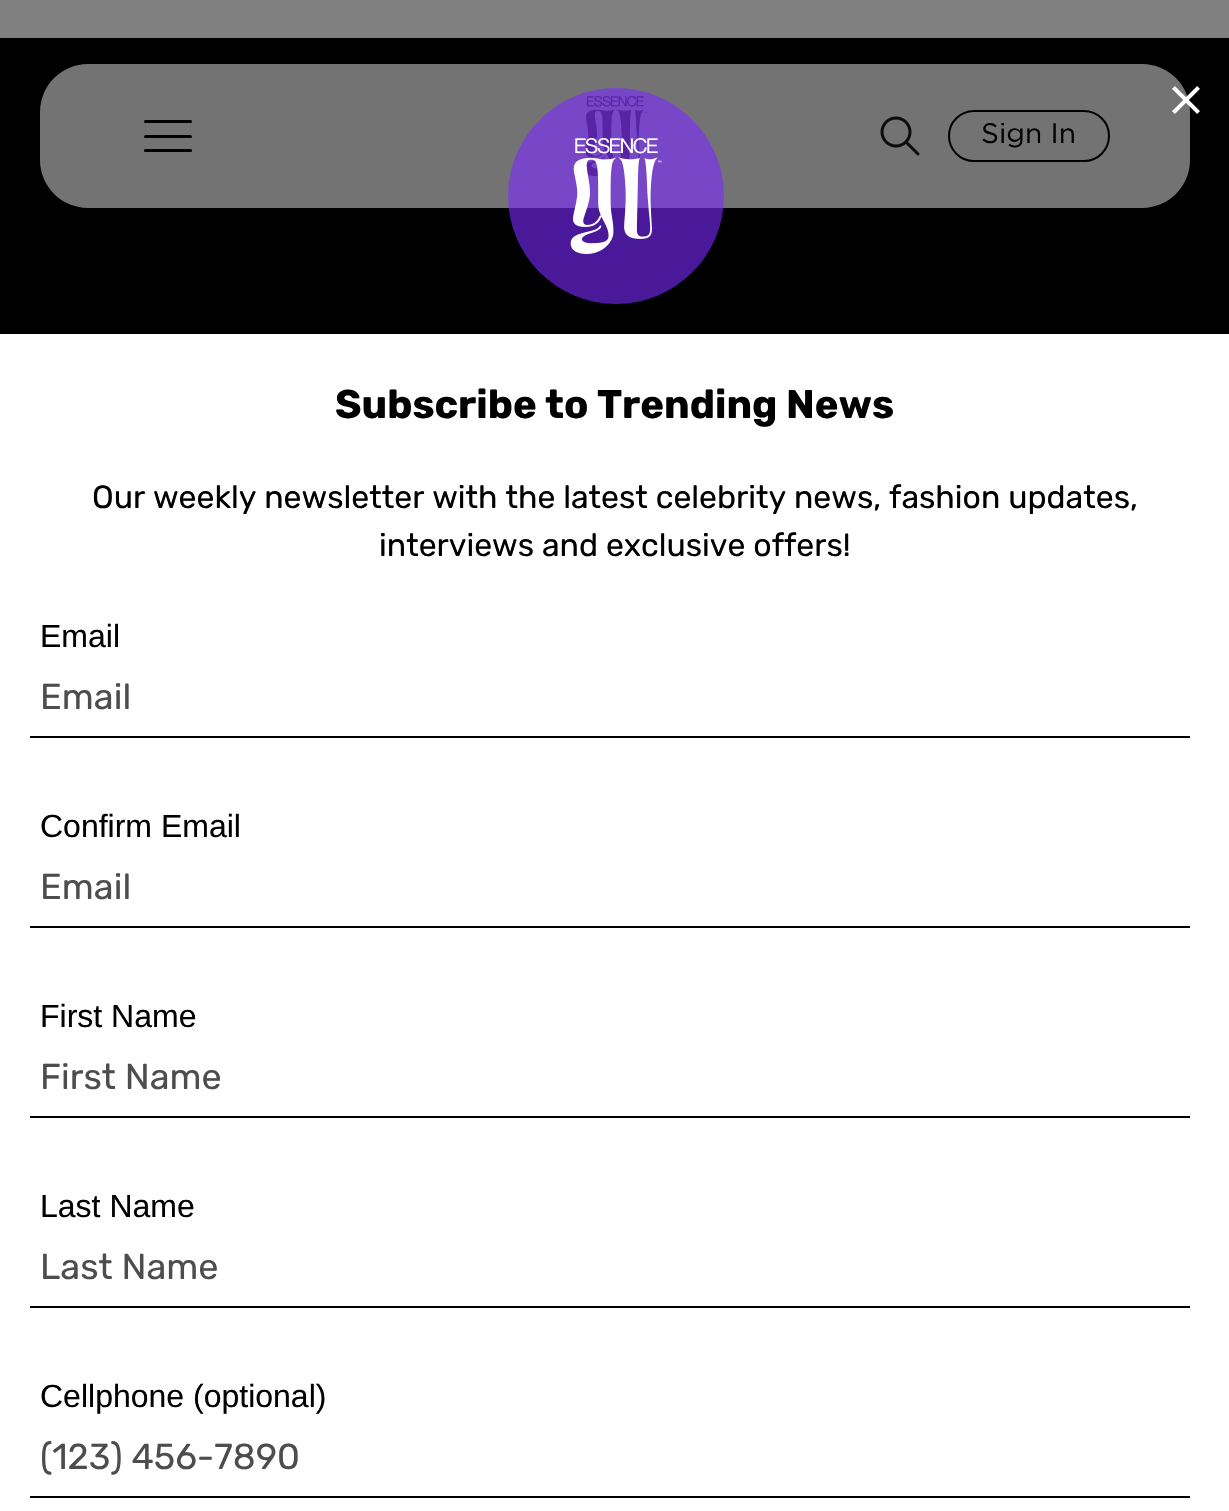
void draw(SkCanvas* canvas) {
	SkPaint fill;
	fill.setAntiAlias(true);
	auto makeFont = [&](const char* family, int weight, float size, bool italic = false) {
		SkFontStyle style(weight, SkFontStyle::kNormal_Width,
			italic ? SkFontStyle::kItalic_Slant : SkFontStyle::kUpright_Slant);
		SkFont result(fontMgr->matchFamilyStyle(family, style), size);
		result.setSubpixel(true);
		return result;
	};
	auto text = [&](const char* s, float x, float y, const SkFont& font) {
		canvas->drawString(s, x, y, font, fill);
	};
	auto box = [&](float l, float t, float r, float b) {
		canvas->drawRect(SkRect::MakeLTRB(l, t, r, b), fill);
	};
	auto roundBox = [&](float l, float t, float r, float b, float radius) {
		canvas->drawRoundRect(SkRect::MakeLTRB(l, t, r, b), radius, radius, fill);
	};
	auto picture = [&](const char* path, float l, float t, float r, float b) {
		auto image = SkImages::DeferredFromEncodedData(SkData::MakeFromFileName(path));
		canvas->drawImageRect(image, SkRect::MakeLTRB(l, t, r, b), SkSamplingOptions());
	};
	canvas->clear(0xFF808080);
	fill.setColor(0xFF000000);
	box(0, 38, 1229, 334);
	fill.setColor(0xFF737373);
	roundBox(40, 64, 1190, 208, 48);
	fill.setColor(0xFF000000);
	roundBox(144, 149, 192, 152, 1.5f);
	roundBox(144, 135, 192, 138, 1.5f);
	roundBox(144, 120, 192, 123, 1.5f);
	picture("image0.png", 585, 96, 647, 176);
	picture("image1.png", 880, 116, 920, 156);
	fill.setStyle(SkPaint::kStroke_Style);
	fill.setStrokeWidth(2);
	canvas->drawRoundRect(SkRect::MakeLTRB(949, 111, 1109, 161), 25, 25, fill);
	fill.setStyle(SkPaint::kFill_Style);
	fill.setColor(0x997B2AFF);
	canvas->drawCircle(616, 196, 108, fill);
	picture("image2.png", 570, 138, 662, 254);
	fill.setColor(0xFFFFFFFF);
	box(0, 334, 1229, 1511);
	picture("image3.png", 1172, 86, 1200, 114);
	fill.setColor(0xFF000000);
	box(30, 736, 1190, 738);
	box(30, 926, 1190, 928);
	box(30, 1116, 1190, 1118);
	box(30, 1306, 1190, 1308);
	box(30, 1496, 1190, 1498);
	auto font1 = makeFont("Gotham", 400, 28);
	text("Sign In", 981, 143, font1);
	auto font2 = makeFont("Rubik", 700, 40);
	text("Subscribe to Trending News", 335, 418, font2);
	auto font3 = makeFont("Rubik", 400, 32);
	text("Our weekly newsletter with the latest celebrity news, fashion updates,", 92, 508, font3);
	text("interviews and exclusive offers!", 379, 556, font3);
	auto font4 = makeFont("Liberation Sans", 400, 32);
	text("Email", 40, 647, font4);
	auto font5 = makeFont("Rubik", 400, 36);
	fill.setColor(0xFF4D4D4D);
	text("Email", 40, 709, font5);
	fill.setColor(0xFF000000);
	text("Confirm Email", 40, 837, font4);
	fill.setColor(0xFF4D4D4D);
	text("Email", 40, 899, font5);
	fill.setColor(0xFF000000);
	text("First Name", 40, 1027, font4);
	fill.setColor(0xFF4D4D4D);
	text("First Name", 40, 1089, font5);
	fill.setColor(0xFF000000);
	text("Last Name", 40, 1217, font4);
	fill.setColor(0xFF4D4D4D);
	text("Last Name", 40, 1279, font5);
	fill.setColor(0xFF000000);
	text("Cellphone (optional)", 40, 1407, font4);
	fill.setColor(0xFF4D4D4D);
	text("(123) 456-7890", 40, 1469, font5);
}
